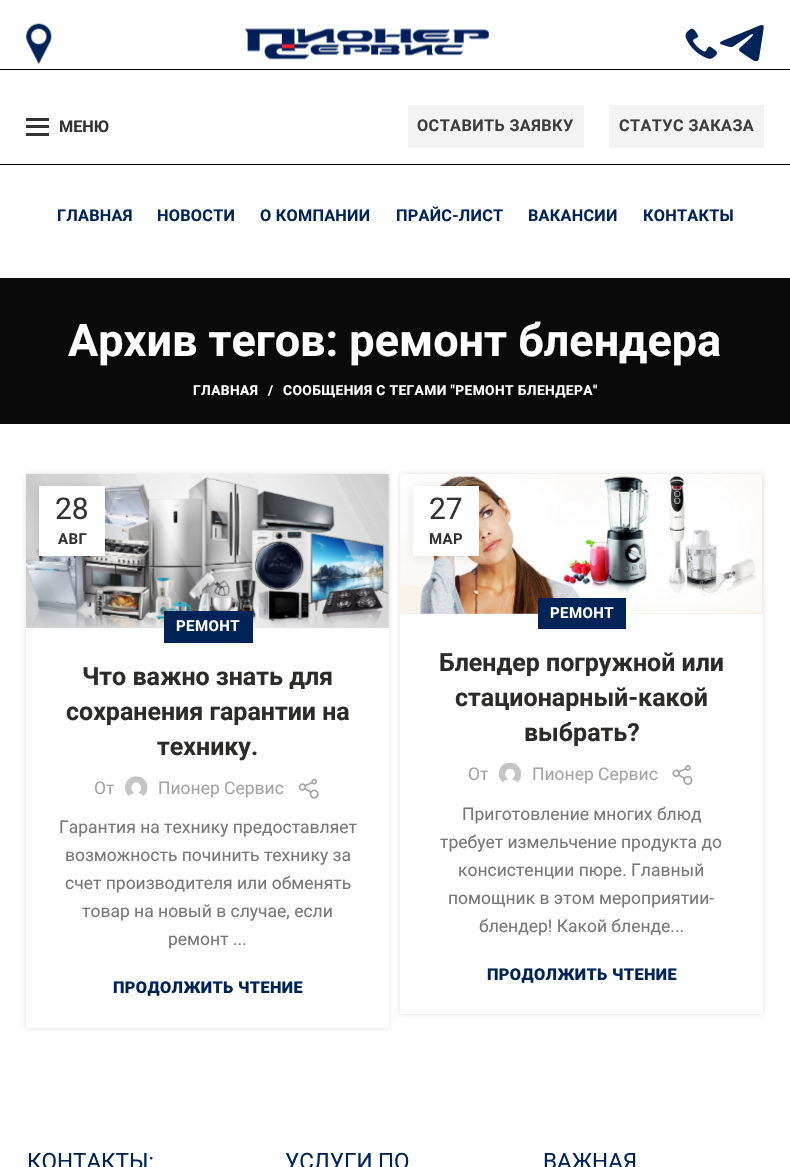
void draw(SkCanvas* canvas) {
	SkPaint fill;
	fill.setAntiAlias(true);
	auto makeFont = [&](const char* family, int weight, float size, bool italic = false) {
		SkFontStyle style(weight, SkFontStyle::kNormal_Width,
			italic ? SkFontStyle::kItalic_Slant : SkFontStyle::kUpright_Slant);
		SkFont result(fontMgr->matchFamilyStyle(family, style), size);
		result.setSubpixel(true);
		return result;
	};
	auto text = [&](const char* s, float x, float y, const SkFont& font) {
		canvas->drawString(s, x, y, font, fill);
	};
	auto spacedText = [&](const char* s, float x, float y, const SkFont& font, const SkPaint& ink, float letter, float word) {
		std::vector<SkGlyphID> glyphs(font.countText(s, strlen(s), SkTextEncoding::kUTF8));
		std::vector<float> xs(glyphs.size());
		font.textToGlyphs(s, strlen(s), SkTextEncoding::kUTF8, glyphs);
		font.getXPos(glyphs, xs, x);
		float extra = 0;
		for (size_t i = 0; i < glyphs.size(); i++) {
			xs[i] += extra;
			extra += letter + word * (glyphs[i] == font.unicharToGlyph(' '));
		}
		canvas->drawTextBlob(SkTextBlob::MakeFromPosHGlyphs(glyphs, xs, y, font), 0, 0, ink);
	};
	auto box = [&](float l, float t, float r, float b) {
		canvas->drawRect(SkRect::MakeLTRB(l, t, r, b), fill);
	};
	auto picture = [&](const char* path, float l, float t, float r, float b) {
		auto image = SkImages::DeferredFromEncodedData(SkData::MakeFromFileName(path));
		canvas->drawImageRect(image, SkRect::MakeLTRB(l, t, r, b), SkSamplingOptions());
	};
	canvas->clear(0xFFFFFFFF);
	fill.setColor(0xFF000000);
	box(0, 69, 790, 70);
	picture("image0.png", 26, 23, 52, 64);
	picture("image1.png", 245, 28, 489, 60);
	picture("image2.png", 685, 28, 717, 59);
	picture("image3.png", 720, 25, 764, 61);
	box(0, 164, 790, 165);
	fill.setColor(0xFF333333);
	box(26, 125, 49, 128);
	box(26, 118, 49, 121);
	box(26, 133, 49, 136);
	fill.setColor(0xFFF3F3F3);
	box(408, 105, 584, 148);
	box(609, 105, 764, 148);
	fill.setColor(0xFF0A0A0A);
	box(0, 278, 790, 424);
	fill.setColor(0x1F000000);
	fill.setMaskFilter(SkMaskFilter::MakeBlur(kNormal_SkBlurStyle, 2.5f));
	canvas->drawRect(SkRect::MakeLTRB(26, 474, 389, 1028), fill);
	fill.setMaskFilter(nullptr);
	picture("image4.png", 26, 474, 390, 628);
	fill.setColor(0x1A000000);
	fill.setMaskFilter(SkMaskFilter::MakeBlur(kNormal_SkBlurStyle, 5.5f));
	canvas->drawRect(SkRect::MakeLTRB(39, 486, 105, 556), fill);
	fill.setMaskFilter(nullptr);
	fill.setColor(0xFFFFFFFF);
	box(39, 486, 105, 556);
	box(26, 628, 389, 1028);
	fill.setColor(0xFF002458);
	box(164, 611, 253, 643);
	picture("image5.png", 125, 776, 148, 797);
	picture("image6.png", 298, 778, 319, 799);
	fill.setColor(0x1F000000);
	fill.setMaskFilter(SkMaskFilter::MakeBlur(kNormal_SkBlurStyle, 2.5f));
	canvas->drawRect(SkRect::MakeLTRB(400, 474, 763, 1014), fill);
	fill.setMaskFilter(nullptr);
	picture("image7.png", 400, 474, 762, 614);
	fill.setColor(0x1A000000);
	fill.setMaskFilter(SkMaskFilter::MakeBlur(kNormal_SkBlurStyle, 5.5f));
	canvas->drawRect(SkRect::MakeLTRB(413, 486, 479, 556), fill);
	fill.setMaskFilter(nullptr);
	fill.setColor(0xFFFFFFFF);
	box(413, 486, 479, 556);
	box(400, 614, 763, 1014);
	fill.setColor(0xFF002458);
	box(538, 598, 626, 629);
	picture("image8.png", 499, 762, 521, 783);
	picture("image9.png", 672, 765, 693, 785);
	auto font1 = makeFont("Roboto", 700, 16.25f);
	fill.setColor(0xFF333333);
	text("МЕНЮ", 59, 132, font1);
	fill.setColor(0xFF3E3E3E);
	spacedText("ОСТАВИТЬ ЗАЯВКУ", 417, 131, font1, fill, 0.4f, 0);
	spacedText("СТАТУС ЗАКАЗА", 619, 131, font1, fill, 0.4f, 0);
	fill.setColor(0xFF002458);
	spacedText("ГЛАВНАЯ", 57, 221, font1, fill, 0.25f, 0);
	spacedText("НОВОСТИ", 157, 221, font1, fill, 0.25f, 0);
	spacedText("О КОМПАНИИ", 260, 221, font1, fill, 0.25f, 0);
	spacedText("ПРАЙС-ЛИСТ", 396, 221, font1, fill, 0.25f, 0);
	spacedText("ВАКАНСИИ", 528, 221, font1, fill, 0.25f, 0);
	spacedText("КОНТАКТЫ", 643, 221, font1, fill, 0.25f, 0);
	auto font2 = makeFont("Roboto", 700, 45);
	fill.setColor(0xFFFFFFFF);
	text("Архив тегов: ремонт блендера", 68, 356, font2);
	auto font3 = makeFont("Roboto", 700, 13.75f);
	spacedText("ГЛАВНАЯ", 193, 395, font3, fill, 0.4f, 0);
	spacedText("/", 268, 395, font3, fill, 0.4f, 0);
	spacedText("СООБЩЕНИЯ С ТЕГАМИ \"РЕМОНТ БЛЕНДЕРА\"", 283, 395, font3, fill, 0.4f, 0);
	auto font4 = makeFont("Roboto", 400, 30);
	fill.setColor(0xFF333333);
	text("28", 55, 519, font4);
	auto font5 = makeFont("Roboto", 700, 15);
	spacedText("АВГ", 58, 544, font5, fill, 0.4f, 0);
	fill.setColor(0xFFFFFFFF);
	spacedText("РЕМОНТ", 176, 631, font5, fill, 0.4f, 0);
	auto font6 = makeFont("Roboto", 700, 25);
	fill.setColor(0xFF2D2A2A);
	text("Что важно знать для", 82, 685, font6);
	text("сохранения гарантии на", 66, 720, font6);
	text("технику.", 157, 755, font6);
	auto font7 = makeFont("Roboto", 400, 17.5f);
	fill.setColor(0xFFA4A4A4);
	text("От", 94, 794, font7);
	text("Пионер Сервис", 158, 794, font7);
	fill.setColor(0xFF777777);
	text("Гарантия на технику предоставляет", 59, 833, font7);
	text("возможность починить технику за", 65, 861, font7);
	text("счет производителя или обменять", 65, 889, font7);
	text("товар на новый в случае, если", 82, 917, font7);
	text("ремонт ...", 168, 945, font7);
	auto font8 = makeFont("Roboto", 900, 16.25f);
	fill.setColor(0xFF002458);
	spacedText("ПРОДОЛЖИТЬ ЧТЕНИЕ", 113, 993, font8, fill, 0.4f, 0);
	fill.setColor(0xFF333333);
	text("27", 429, 519, font4);
	spacedText("МАР", 429, 544, font5, fill, 0.4f, 0);
	fill.setColor(0xFFFFFFFF);
	spacedText("РЕМОНТ", 550, 618, font5, fill, 0.4f, 0);
	fill.setColor(0xFF2D2A2A);
	text("Блендер погружной или", 439, 671, font6);
	text("стационарный-какой", 455, 706, font6);
	text("выбрать?", 524, 741, font6);
	fill.setColor(0xFFA4A4A4);
	text("От", 468, 780, font7);
	text("Пионер Сервис", 532, 780, font7);
	fill.setColor(0xFF777777);
	text("Приготовление многих блюд", 462, 820, font7);
	text("требует измельчение продукта до", 440, 848, font7);
	text("консистенции пюре. Главный", 458, 876, font7);
	text("помощник в этом мероприятии-", 448, 904, font7);
	text("блендер! Какой бленде...", 479, 932, font7);
	fill.setColor(0xFF002458);
	spacedText("ПРОДОЛЖИТЬ ЧТЕНИЕ", 487, 980, font8, fill, 0.4f, 0);
	auto font9 = makeFont("Roboto", 400, 22.5f);
	text("КОНТАКТЫ:", 27, 1169, font9);
	text("УСЛУГИ ПО", 285, 1169, font9);
	text("ВАЖНАЯ", 543, 1169, font9);
}
